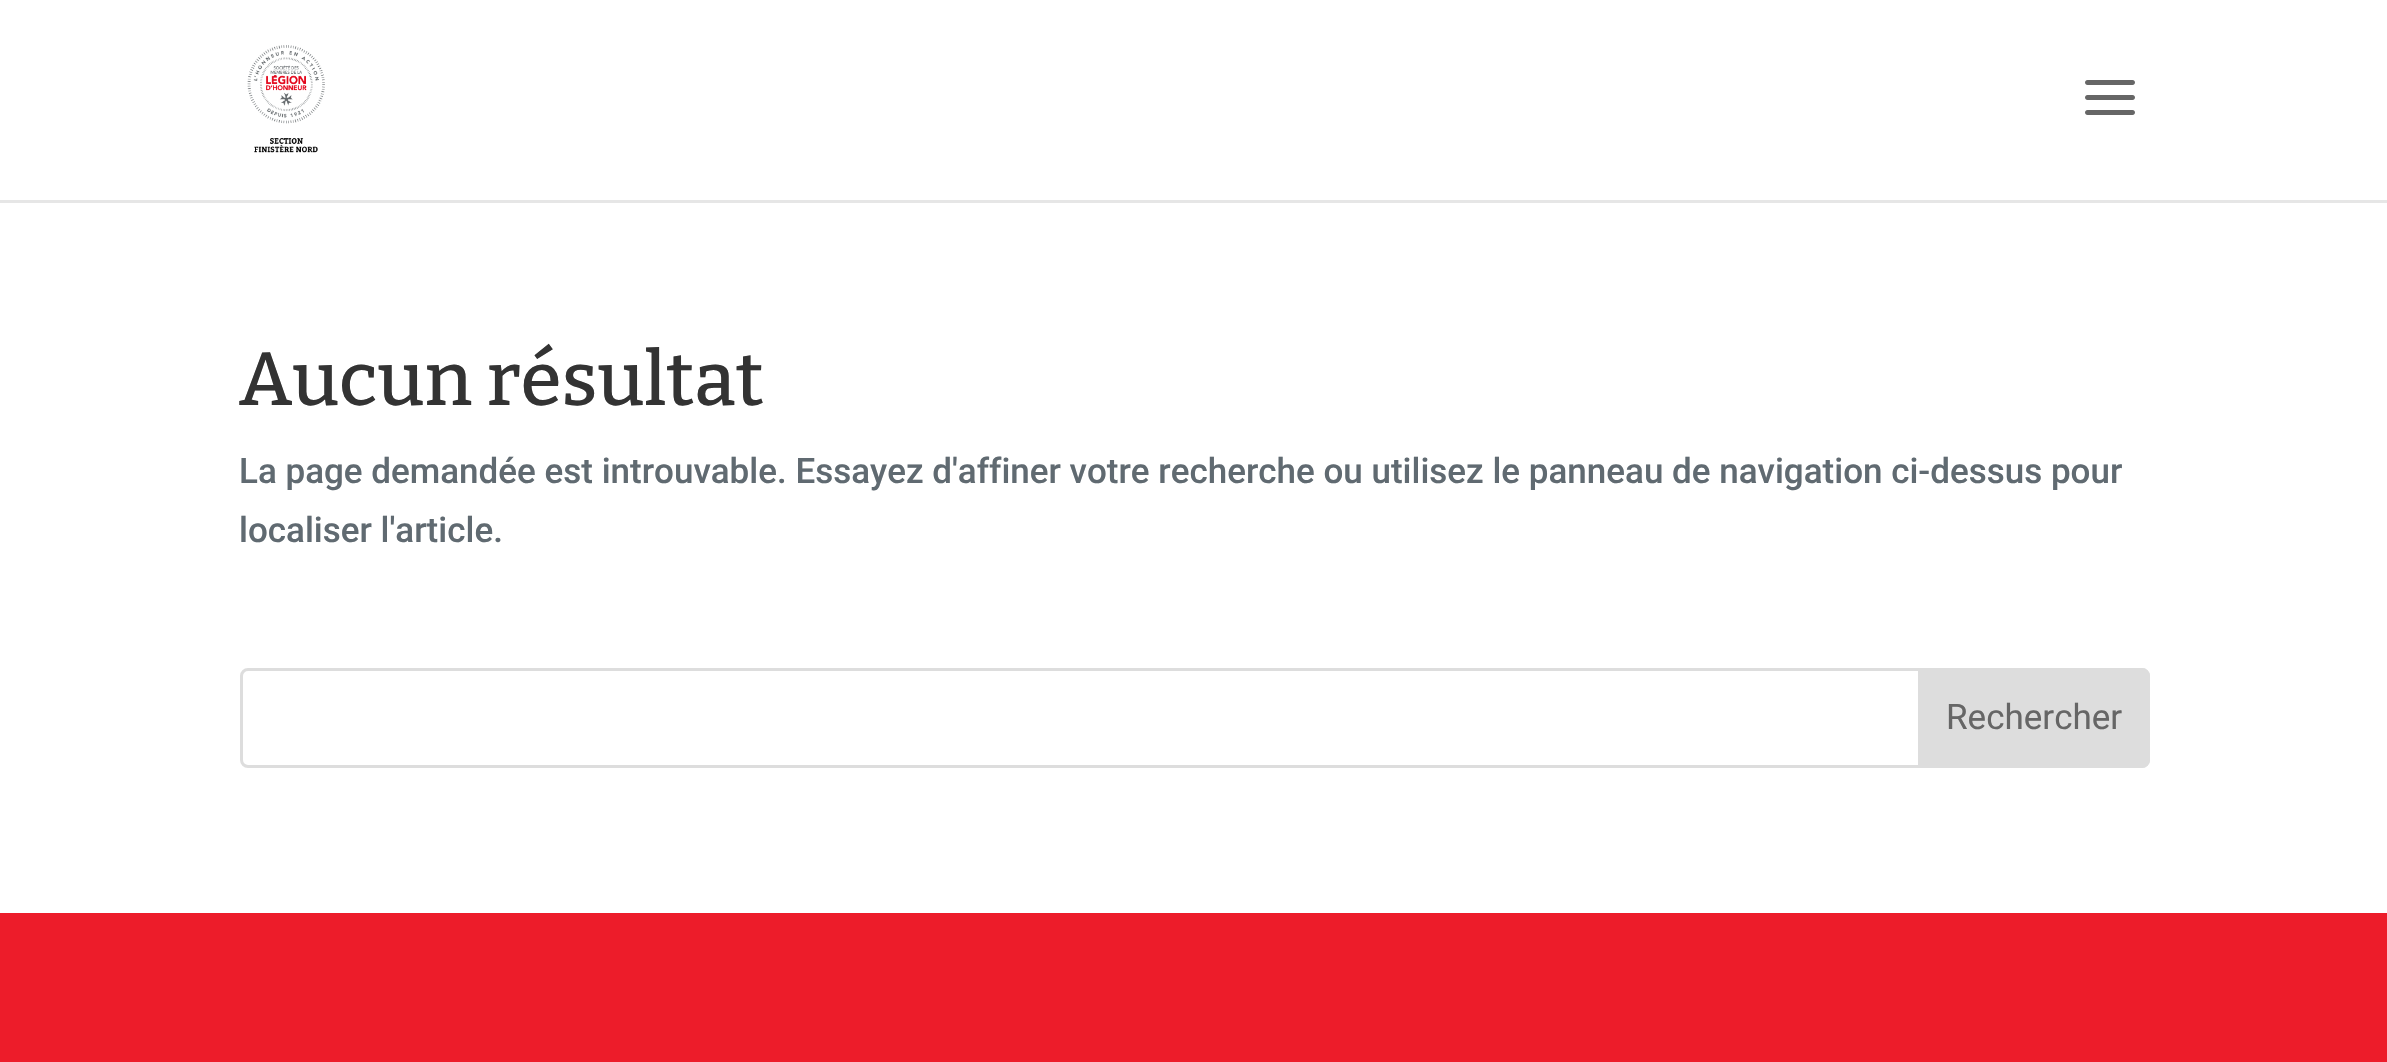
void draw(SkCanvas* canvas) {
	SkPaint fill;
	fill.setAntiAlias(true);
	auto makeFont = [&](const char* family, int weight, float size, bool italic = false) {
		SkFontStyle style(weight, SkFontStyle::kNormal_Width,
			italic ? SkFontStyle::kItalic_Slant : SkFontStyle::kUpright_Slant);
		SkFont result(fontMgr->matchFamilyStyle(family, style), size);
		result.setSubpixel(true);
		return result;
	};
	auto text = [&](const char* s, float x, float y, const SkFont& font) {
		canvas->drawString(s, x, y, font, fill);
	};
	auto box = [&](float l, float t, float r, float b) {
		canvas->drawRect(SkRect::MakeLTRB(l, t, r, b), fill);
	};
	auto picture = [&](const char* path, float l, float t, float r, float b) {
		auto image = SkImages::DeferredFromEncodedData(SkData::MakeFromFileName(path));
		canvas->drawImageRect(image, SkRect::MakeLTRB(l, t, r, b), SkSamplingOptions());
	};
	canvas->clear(0xFFED1C2A);
	fill.setColor(0xFFE6E6E6);
	canvas->drawPath(SkPathBuilder().moveTo(0, 200).lineTo(0, 203).lineTo(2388, 203).lineTo(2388, 3).lineTo(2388, 200).close().detach(), fill);
	fill.setColor(0xFFFFFFFF);
	box(0, 0, 2387, 200);
	picture("image0.png", 247, 45, 325, 153);
	picture("image1.png", 2085, 80, 2135, 115);
	box(0, 203, 2387, 913);
	fill.setStyle(SkPaint::kStroke_Style);
	fill.setStrokeWidth(3);
	fill.setColor(0xFFDDDDDD);
	canvas->drawRoundRect(SkRect::MakeLTRB(241.5f, 669.5f, 2148.5f, 766.5f), 6.5f, 6.5f, fill);
	fill.setStyle(SkPaint::kFill_Style);
	canvas->drawPath(SkPathBuilder().moveTo(1919.5f, 669.5f).lineTo(2142, 669.5f).cubicTo(2145.5f, 669.5f, 2148.5f, 672.5f, 2148.5f, 676).lineTo(2148.5f, 760).cubicTo(2148.5f, 763.5f, 2145.5f, 766.5f, 2142, 766.5f).lineTo(1919.5f, 766.5f).close().detach(), fill);
	fill.setStyle(SkPaint::kStroke_Style);
	canvas->drawPath(SkPathBuilder().moveTo(1919.5f, 669.5f).lineTo(2142, 669.5f).cubicTo(2145.5f, 669.5f, 2148.5f, 672.5f, 2148.5f, 676).lineTo(2148.5f, 760).cubicTo(2148.5f, 763.5f, 2145.5f, 766.5f, 2142, 766.5f).lineTo(1919.5f, 766.5f).close().detach(), fill);
	auto font1 = makeFont("Bitter", 500, 75);
	fill.setStyle(SkPaint::kFill_Style);
	fill.setColor(0xFF333333);
	text("Aucun résultat", 239, 405, font1);
	auto font2 = makeFont("Roboto", 500, 35);
	fill.setColor(0xFF606A71);
	text("La page demandée est introuvable. Essayez d'affiner votre recherche ou utilisez le panneau de navigation ci-dessus pour", 239, 483, font2);
	text("localiser l'article.", 239, 542, font2);
	auto font3 = makeFont("Roboto", 400, 35);
	fill.setColor(0xFF666666);
	text("Rechercher", 1946, 729, font3);
}
